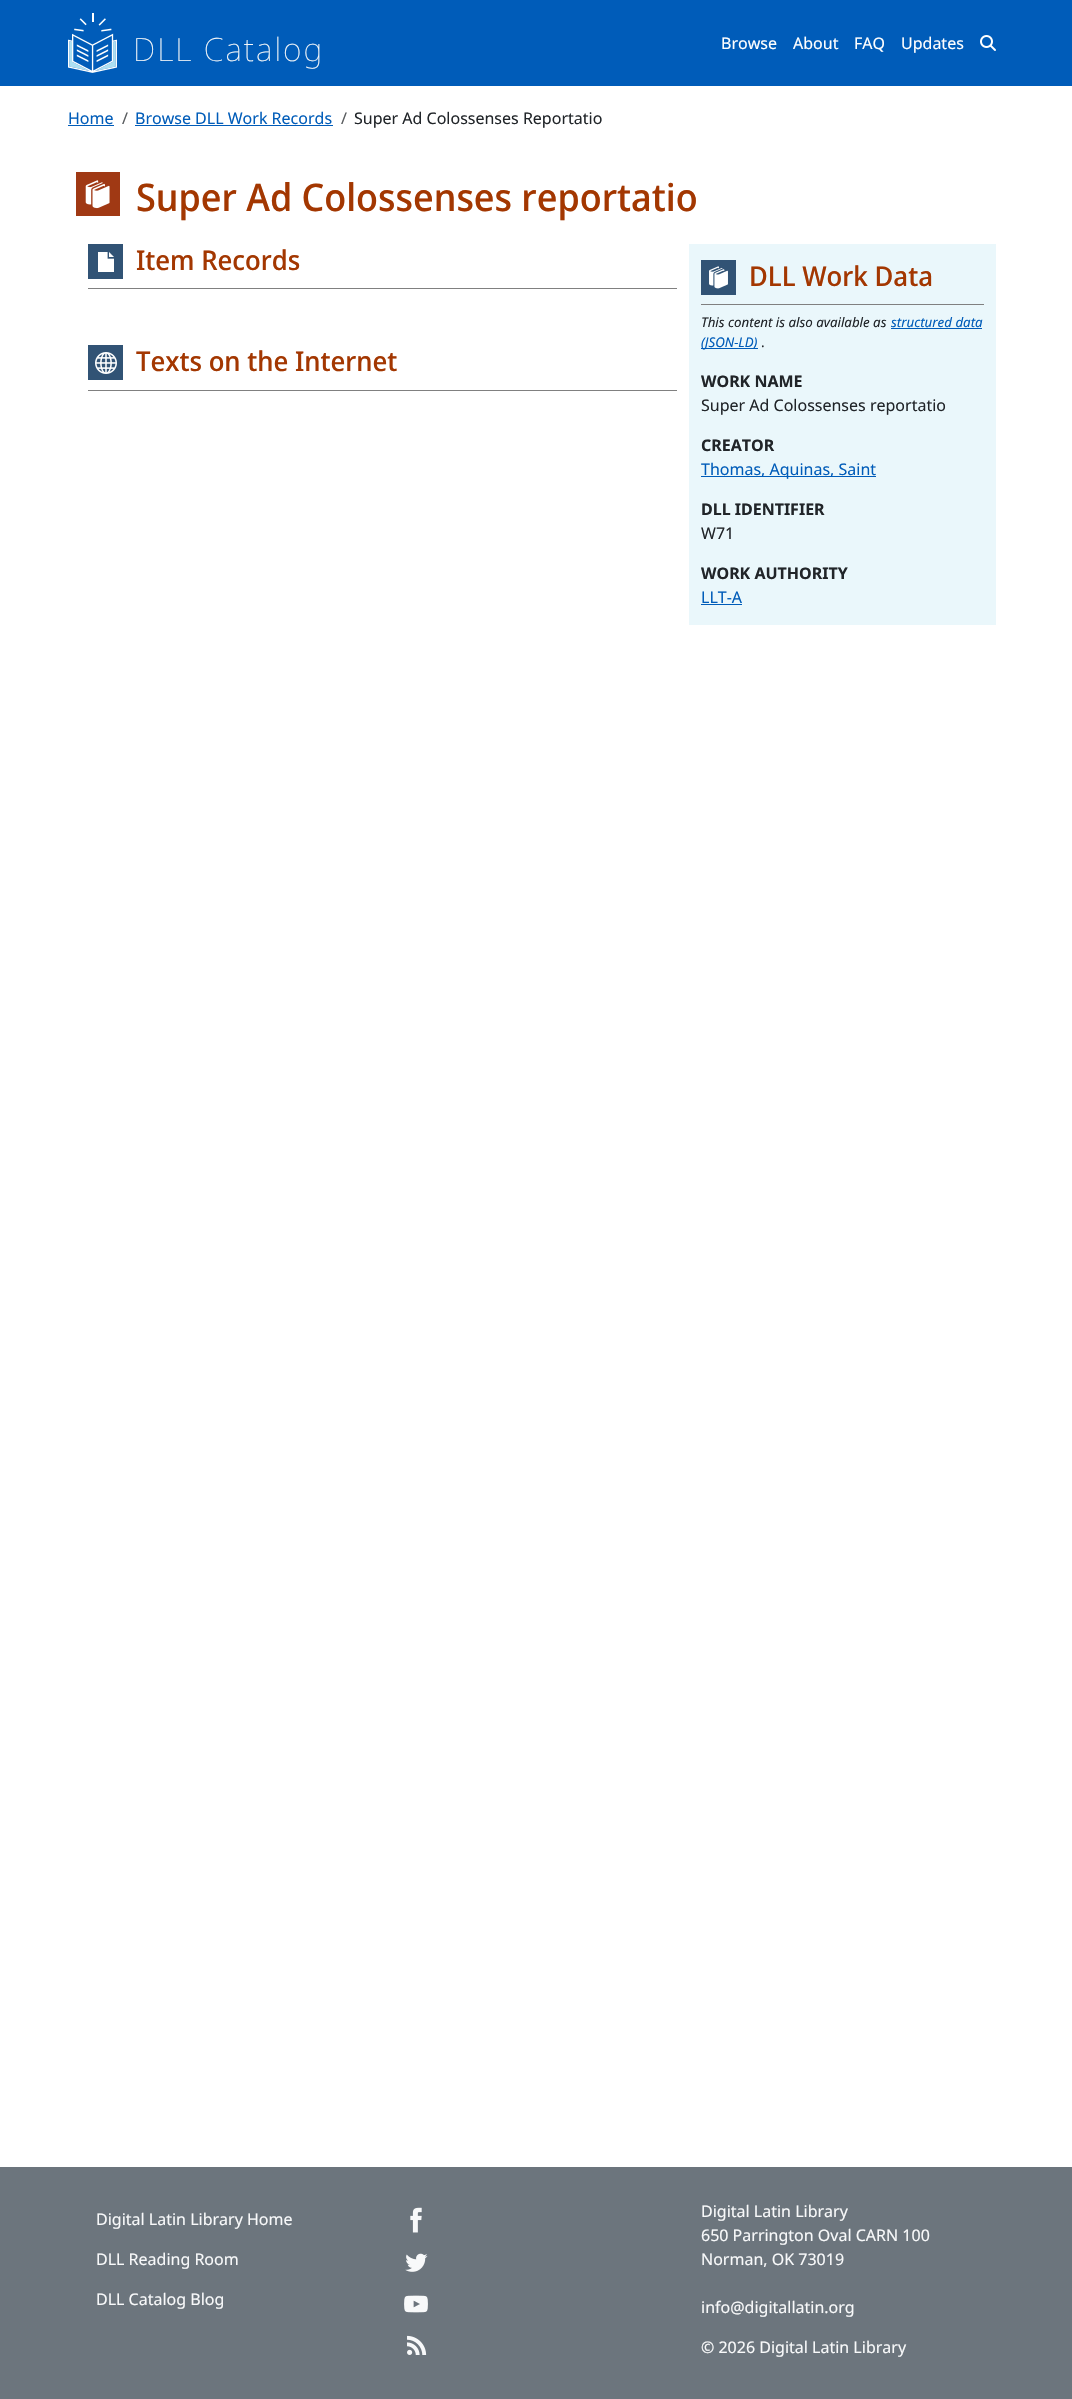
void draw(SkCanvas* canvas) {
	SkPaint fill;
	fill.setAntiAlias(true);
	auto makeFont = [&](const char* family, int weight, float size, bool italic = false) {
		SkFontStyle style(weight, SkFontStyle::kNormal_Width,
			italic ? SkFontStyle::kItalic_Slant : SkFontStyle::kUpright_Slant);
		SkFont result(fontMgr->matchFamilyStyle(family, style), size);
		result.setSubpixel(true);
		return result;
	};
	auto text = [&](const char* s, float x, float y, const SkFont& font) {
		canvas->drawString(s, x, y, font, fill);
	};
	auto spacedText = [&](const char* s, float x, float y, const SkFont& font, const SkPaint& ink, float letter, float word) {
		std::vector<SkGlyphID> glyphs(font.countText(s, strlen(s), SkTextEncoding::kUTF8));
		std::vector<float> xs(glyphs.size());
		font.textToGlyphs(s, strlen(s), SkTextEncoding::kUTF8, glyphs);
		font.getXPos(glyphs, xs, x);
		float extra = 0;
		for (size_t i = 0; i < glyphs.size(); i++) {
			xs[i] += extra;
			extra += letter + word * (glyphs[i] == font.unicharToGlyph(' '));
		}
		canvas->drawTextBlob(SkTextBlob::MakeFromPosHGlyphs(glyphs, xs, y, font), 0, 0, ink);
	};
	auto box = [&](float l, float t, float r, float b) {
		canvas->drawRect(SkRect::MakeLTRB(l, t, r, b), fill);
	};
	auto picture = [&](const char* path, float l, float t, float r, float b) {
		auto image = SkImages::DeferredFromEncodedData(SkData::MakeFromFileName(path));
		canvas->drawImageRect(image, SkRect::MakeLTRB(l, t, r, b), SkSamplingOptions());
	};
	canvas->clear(0xFFFFFFFF);
	fill.setColor(0xFF005CB9);
	box(0, 0, 1072, 86);
	picture("image0.png", 68, 13, 117, 73);
	picture("image1.png", 980, 35, 996, 51);
	box(68, 125, 114, 126);
	box(135, 125, 333, 126);
	picture("image2.png", 76, 172, 120, 216);
	picture("image3.png", 88, 244, 123, 279);
	fill.setColor(0xFF808080);
	box(88, 288, 677, 289);
	picture("image4.png", 88, 345, 123, 380);
	box(88, 390, 677, 391);
	fill.setColor(0xFFEAF7FB);
	box(689, 244, 996, 625);
	picture("image5.png", 701, 260, 736, 295);
	fill.setColor(0xFF808080);
	box(701, 304, 984, 305);
	fill.setColor(0xFF005CB9);
	box(891, 328, 982, 329);
	box(701, 348, 758, 349);
	box(701, 476, 876, 477);
	box(701, 604, 742, 605);
	fill.setColor(0xFF6C757D);
	box(0, 2167, 1072, 2399);
	picture("image6.png", 410, 2207, 422, 2233);
	picture("image7.png", 405, 2253, 428, 2272);
	picture("image8.png", 404, 2295, 428, 2313);
	picture("image9.png", 407, 2335, 427, 2355);
	auto font1 = makeFont("Noto Sans", 100, 32);
	fill.setColor(0xFFF8F9FA);
	spacedText("DLL Catalog", 133, 61, font1, fill, 2, 0);
	auto font2 = makeFont("Noto Sans", 400, 16);
	fill.setColor(0xFFFFFFFF);
	text("Browse", 721, 49, font2);
	text("About", 793, 49, font2);
	text("FAQ", 854, 49, font2);
	text("Updates", 901, 49, font2);
	fill.setColor(0xFF005CB9);
	text("Home", 68, 124, font2);
	fill.setColor(0xFF595C5F);
	text("/", 122, 124, font2);
	fill.setColor(0xFF005CB9);
	text("Browse DLL Work Records", 135, 124, font2);
	fill.setColor(0xFF595C5F);
	text("/", 341, 124, font2);
	fill.setColor(0xFF212529);
	text("Super Ad Colossenses Reportatio", 354, 124, font2);
	auto font3 = makeFont("Noto Sans Display", 500, 38.1f);
	fill.setColor(0xFFA33701);
	text("Super Ad Colossenses reportatio", 136, 211, font3);
	auto font4 = makeFont("Noto Sans Display", 500, 27.25f);
	text("Item Records", 136, 270, font4);
	text("Texts on the Internet", 136, 371, font4);
	text("DLL Work Data", 749, 286, font4);
	auto font5 = makeFont("Noto Sans", 400, 13.3f, true);
	fill.setColor(0xFF212529);
	text("This content is also available as", 701, 327, font5);
	fill.setColor(0xFF005CB9);
	text("structured data", 891, 327, font5);
	text("(JSON-LD)", 701, 347, font5);
	auto font6 = makeFont("Noto Sans", 400, 13.3f);
	fill.setColor(0xFF212529);
	text(".", 761, 347, font6);
	auto font7 = makeFont("Noto Sans", 700, 16);
	text("WORK NAME", 701, 387, font7);
	text("Super Ad Colossenses reportatio", 701, 411, font2);
	text("CREATOR", 701, 451, font7);
	fill.setColor(0xFF005CB9);
	text("Thomas, Aquinas, Saint", 701, 475, font2);
	fill.setColor(0xFF212529);
	text("DLL IDENTIFIER", 701, 515, font7);
	text("W71", 701, 539, font2);
	text("WORK AUTHORITY", 701, 579, font7);
	fill.setColor(0xFF005CB9);
	text("LLT-A", 701, 603, font2);
	fill.setColor(0xFFF8F9FA);
	text("Digital Latin Library Home", 96, 2225, font2);
	text("DLL Reading Room", 96, 2265, font2);
	text("DLL Catalog Blog", 96, 2305, font2);
	text("Digital Latin Library", 701, 2217, font2);
	text("650 Parrington Oval CARN 100", 701, 2241, font2);
	text("Norman, OK 73019", 701, 2265, font2);
	text("info@digitallatin.org", 701, 2313, font2);
	text("© 2026 Digital Latin Library", 701, 2353, font2);
}
